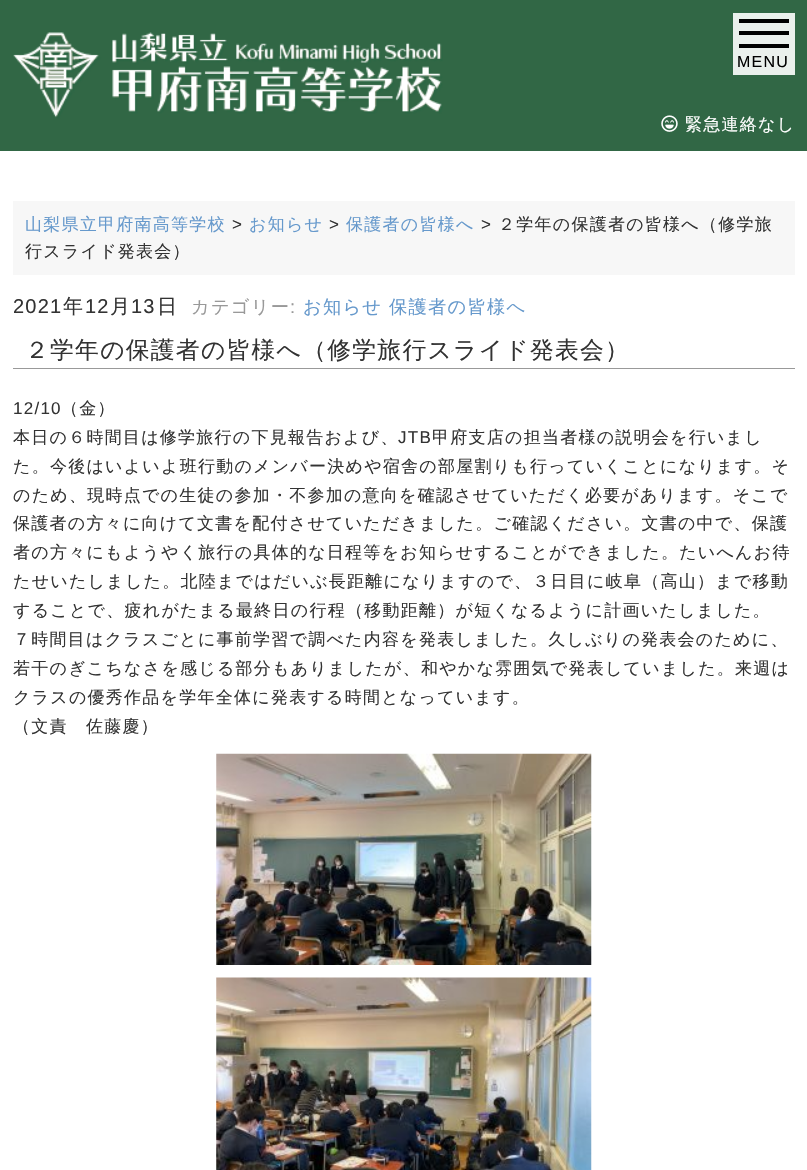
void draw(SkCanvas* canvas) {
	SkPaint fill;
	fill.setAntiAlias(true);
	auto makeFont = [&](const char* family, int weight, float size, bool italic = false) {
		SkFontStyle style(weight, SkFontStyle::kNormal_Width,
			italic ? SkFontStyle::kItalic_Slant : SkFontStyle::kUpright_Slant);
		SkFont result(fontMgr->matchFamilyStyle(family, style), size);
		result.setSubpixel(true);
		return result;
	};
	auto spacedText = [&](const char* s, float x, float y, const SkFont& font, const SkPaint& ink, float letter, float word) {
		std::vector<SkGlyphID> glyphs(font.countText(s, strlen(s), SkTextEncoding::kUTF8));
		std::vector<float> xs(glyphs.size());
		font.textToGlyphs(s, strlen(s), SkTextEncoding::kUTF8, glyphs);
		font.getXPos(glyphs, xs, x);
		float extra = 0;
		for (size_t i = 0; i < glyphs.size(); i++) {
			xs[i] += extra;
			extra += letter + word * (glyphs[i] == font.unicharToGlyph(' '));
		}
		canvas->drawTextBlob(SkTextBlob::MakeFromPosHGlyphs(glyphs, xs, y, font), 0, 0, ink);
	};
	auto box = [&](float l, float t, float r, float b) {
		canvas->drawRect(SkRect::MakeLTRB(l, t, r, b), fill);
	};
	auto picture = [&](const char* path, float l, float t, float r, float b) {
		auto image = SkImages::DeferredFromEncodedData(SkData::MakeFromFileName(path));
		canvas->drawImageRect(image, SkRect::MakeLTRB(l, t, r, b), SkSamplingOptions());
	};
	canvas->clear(0xFFFFFFFF);
	fill.setColor(0xFF316745);
	box(0, 0, 807, 151);
	fill.setColor(0xFFEAF0EC);
	box(733, 13, 795, 75);
	fill.setColor(0xFF000000);
	box(739, 19, 789, 23);
	box(739, 31, 789, 35);
	box(739, 44, 789, 48);
	picture("image0.png", 13, 32, 443, 119);
	picture("image1.png", 661, 115, 678, 132);
	fill.setColor(0xFFF7F7F7);
	box(13, 201, 795, 275);
	fill.setColor(0xFF999999);
	box(13, 368, 795, 369);
	picture("image2.png", 216, 753, 592, 965);
	picture("image3.png", 216, 977, 592, 1170);
	auto font1 = makeFont("Liberation Sans", 400, 16);
	fill.setColor(0xFF000000);
	spacedText("MENU", 737, 67, font1, fill, 1.25f, 0);
	auto font2 = makeFont("WenQuanYi Zen Hei", 500, 17);
	fill.setColor(0xFFFFFFFF);
	spacedText("緊急連絡なし", 685, 130, font2, fill, 1.25f, 0);
	fill.setColor(0xFF6699CC);
	spacedText("山梨県立甲府南高等学校", 25, 230, font2, fill, 1.25f, 0);
	auto font3 = makeFont("Liberation Sans", 400, 17);
	fill.setColor(0xFF333333);
	spacedText(">", 232, 230, font3, fill, 1.25f, 0);
	fill.setColor(0xFF6699CC);
	spacedText("お知らせ", 249, 230, font2, fill, 1.25f, 0);
	fill.setColor(0xFF333333);
	spacedText(">", 329, 230, font3, fill, 1.25f, 0);
	fill.setColor(0xFF6699CC);
	spacedText("保護者の皆様へ", 346, 230, font2, fill, 1.25f, 0);
	fill.setColor(0xFF333333);
	spacedText(">", 481, 230, font3, fill, 1.25f, 0);
	spacedText("２学年の保護者の皆様へ（修学旅", 498, 230, font2, fill, 1.25f, 0);
	spacedText("行スライド発表会）", 25, 257, font2, fill, 1.25f, 0);
	auto font4 = makeFont("Liberation Sans", 400, 20);
	spacedText("2021", 13, 313, font4, fill, 1.25f, 0);
	auto font5 = makeFont("WenQuanYi Zen Hei", 500, 20);
	spacedText("年", 63, 313, font5, fill, 1.25f, 0);
	spacedText("12", 85, 313, font4, fill, 1.25f, 0);
	spacedText("月", 110, 313, font5, fill, 1.25f, 0);
	spacedText("13", 131, 313, font4, fill, 1.25f, 0);
	spacedText("日", 157, 313, font5, fill, 1.25f, 0);
	auto font6 = makeFont("WenQuanYi Zen Hei", 500, 18.25f);
	fill.setColor(0xFF999999);
	spacedText("カテゴリー", 191, 313, font6, fill, 1.25f, 0);
	auto font7 = makeFont("Liberation Sans", 400, 18.25f);
	spacedText(":", 290, 313, font7, fill, 1.25f, 0);
	fill.setColor(0xFF6699CC);
	spacedText("お知らせ", 303, 313, font6, fill, 1.25f, 0);
	spacedText("保護者の皆様へ", 389, 313, font6, fill, 1.25f, 0);
	auto font8 = makeFont("WenQuanYi Zen Hei", 500, 23.8f);
	fill.setColor(0xFF333333);
	spacedText("２学年の保護者の皆様へ（修学旅行スライド発表会）", 25, 358, font8, fill, 1.25f, 0);
	spacedText("12/10", 13, 414, font3, fill, 1.25f, 0);
	spacedText("（金）", 61, 414, font2, fill, 1.25f, 0);
	spacedText("本日の６時間目は修学旅行の下見報告および、", 13, 443, font2, fill, 1.25f, 0);
	spacedText("JTB", 398, 443, font3, fill, 1.25f, 0);
	spacedText("甲府支店の担当者様の説明会を行いまし", 432, 443, font2, fill, 1.25f, 0);
	spacedText("た。今後はいよいよ班行動のメンバー決めや宿舎の部屋割りも行っていくことになります。そ", 13, 472, font2, fill, 1.25f, 0);
	spacedText("のため、現時点での生徒の参加・不参加の意向を確認させていただく必要があります。そこで", 13, 501, font2, fill, 1.25f, 0);
	spacedText("保護者の方々に向けて文書を配付させていただきました。ご確認ください。文書の中で、保護", 13, 529, font2, fill, 1.25f, 0);
	spacedText("者の方々にもようやく旅行の具体的な日程等をお知らせすることができました。たいへんお待", 13, 558, font2, fill, 1.25f, 0);
	spacedText("たせいたしました。北陸まではだいぶ長距離になりますので、３日目に岐阜（高山）まで移動", 13, 587, font2, fill, 1.25f, 0);
	spacedText("することで、疲れがたまる最終日の行程（移動距離）が短くなるように計画いたしました。", 13, 616, font2, fill, 1.25f, 0);
	spacedText("７時間目はクラスごとに事前学習で調べた内容を発表しました。久しぶりの発表会のために、", 13, 645, font2, fill, 1.25f, 0);
	spacedText("若干のぎこちなさを感じる部分もありましたが、和やかな雰囲気で発表していました。来週は", 13, 674, font2, fill, 1.25f, 0);
	spacedText("クラスの優秀作品を学年全体に発表する時間となっています。", 13, 703, font2, fill, 1.25f, 0);
	spacedText("（文責　佐藤慶）", 13, 732, font2, fill, 1.25f, 0);
}
